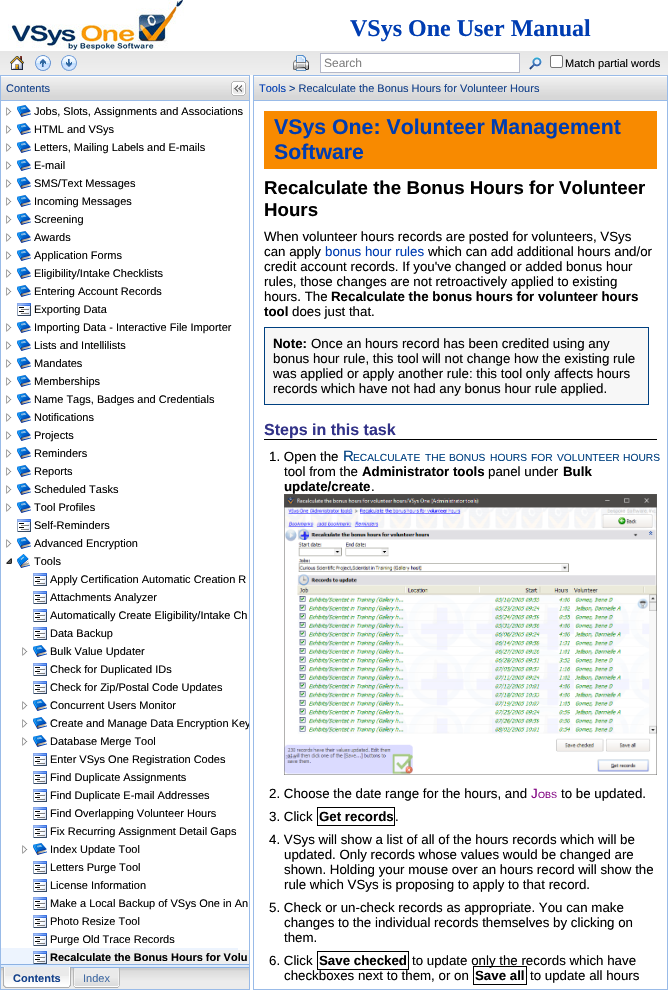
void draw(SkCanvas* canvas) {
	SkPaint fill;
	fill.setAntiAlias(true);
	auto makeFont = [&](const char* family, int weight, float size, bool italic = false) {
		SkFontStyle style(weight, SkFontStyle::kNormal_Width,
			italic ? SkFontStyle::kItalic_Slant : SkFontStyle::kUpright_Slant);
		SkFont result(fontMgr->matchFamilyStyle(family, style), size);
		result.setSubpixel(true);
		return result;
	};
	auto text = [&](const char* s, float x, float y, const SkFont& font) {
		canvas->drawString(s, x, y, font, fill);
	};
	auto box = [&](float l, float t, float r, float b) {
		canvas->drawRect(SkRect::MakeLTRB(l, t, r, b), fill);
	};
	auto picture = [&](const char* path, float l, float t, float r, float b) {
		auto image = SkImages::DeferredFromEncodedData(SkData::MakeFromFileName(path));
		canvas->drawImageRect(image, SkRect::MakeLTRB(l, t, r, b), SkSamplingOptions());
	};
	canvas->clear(0xFFFFFFFF);
	picture("image0.png", 0, 0, 668, 50);
	picture("image1.png", 0, 50, 668, 75);
	picture("image2.png", 10, 56, 24, 70);
	picture("image3.png", 35, 55, 51, 71);
	picture("image4.png", 61, 55, 77, 71);
	picture("image5.png", 293, 55, 309, 71);
	fill.setColor(0xFFFFFFFF);
	canvas->drawRect(SkRect::MakeLTRB(320.5f, 53.5f, 519.5f, 72.5f), fill);
	fill.setStyle(SkPaint::kStroke_Style);
	fill.setStrokeWidth(1);
	fill.setColor(0xFFB5B8C8);
	canvas->drawRect(SkRect::MakeLTRB(320.5f, 53.5f, 519.5f, 72.5f), fill);
	picture("image6.png", 529, 57, 542, 70);
	fill.setStyle(SkPaint::kFill_Style);
	fill.setColor(0xFFFFFFFF);
	canvas->drawRoundRect(SkRect::MakeLTRB(550.5f, 55.5f, 562.5f, 67.5f), 1.5f, 1.5f, fill);
	fill.setStyle(SkPaint::kStroke_Style);
	fill.setColor(0xFF767676);
	canvas->drawRoundRect(SkRect::MakeLTRB(550.5f, 55.5f, 562.5f, 67.5f), 1.5f, 1.5f, fill);
	picture("image7.png", 1, 76, 249, 100);
	fill.setColor(0xFF99BBE8);
	canvas->drawRect(SkRect::MakeLTRB(0.5f, 75.5f, 249.5f, 100.5f), fill);
	picture("image8.png", 231, 81, 246, 96);
	fill.setStyle(SkPaint::kFill_Style);
	box(249, 101, 250, 990);
	box(0, 989, 250, 990);
	box(0, 101, 1, 990);
	picture("image9.png", 6, 107, 12, 116);
	picture("image10.png", 17, 105, 31, 117);
	picture("image9.png", 6, 125, 12, 134);
	picture("image10.png", 17, 123, 31, 135);
	picture("image9.png", 6, 143, 12, 152);
	picture("image10.png", 17, 141, 31, 153);
	picture("image9.png", 6, 161, 12, 170);
	picture("image10.png", 17, 159, 31, 171);
	picture("image9.png", 6, 179, 12, 188);
	picture("image10.png", 17, 177, 31, 189);
	picture("image9.png", 6, 197, 12, 206);
	picture("image10.png", 17, 195, 31, 207);
	picture("image9.png", 6, 215, 12, 224);
	picture("image10.png", 17, 213, 31, 225);
	picture("image9.png", 6, 233, 12, 242);
	picture("image10.png", 17, 231, 31, 243);
	picture("image9.png", 6, 251, 12, 260);
	picture("image10.png", 17, 249, 31, 261);
	picture("image9.png", 6, 269, 12, 278);
	picture("image10.png", 17, 267, 31, 279);
	picture("image9.png", 6, 287, 12, 296);
	picture("image10.png", 17, 285, 31, 297);
	picture("image11.png", 17, 303, 31, 316);
	picture("image9.png", 6, 323, 12, 332);
	picture("image10.png", 17, 321, 31, 333);
	picture("image9.png", 6, 341, 12, 350);
	picture("image10.png", 17, 339, 31, 351);
	picture("image9.png", 6, 359, 12, 368);
	picture("image10.png", 17, 357, 31, 369);
	picture("image9.png", 6, 377, 12, 386);
	picture("image10.png", 17, 375, 31, 387);
	picture("image9.png", 6, 395, 12, 404);
	picture("image10.png", 17, 393, 31, 405);
	picture("image9.png", 6, 413, 12, 422);
	picture("image10.png", 17, 411, 31, 423);
	picture("image9.png", 6, 431, 12, 440);
	picture("image10.png", 17, 429, 31, 441);
	picture("image9.png", 6, 449, 12, 458);
	picture("image10.png", 17, 447, 31, 459);
	picture("image9.png", 6, 467, 12, 476);
	picture("image10.png", 17, 465, 31, 477);
	picture("image9.png", 6, 485, 12, 494);
	picture("image10.png", 17, 483, 31, 495);
	picture("image9.png", 6, 503, 12, 512);
	picture("image10.png", 17, 501, 31, 513);
	picture("image11.png", 17, 519, 31, 532);
	picture("image9.png", 6, 539, 12, 548);
	picture("image10.png", 17, 537, 31, 549);
	picture("image12.png", 6, 558, 12, 564);
	picture("image13.png", 17, 554, 30, 568);
	picture("image11.png", 33, 573, 47, 586);
	picture("image11.png", 33, 591, 47, 604);
	picture("image11.png", 33, 609, 47, 622);
	picture("image11.png", 33, 627, 47, 640);
	picture("image9.png", 22, 647, 28, 656);
	picture("image10.png", 33, 645, 47, 657);
	picture("image11.png", 33, 663, 47, 676);
	picture("image11.png", 33, 681, 47, 694);
	picture("image9.png", 22, 701, 28, 710);
	picture("image10.png", 33, 699, 47, 711);
	picture("image9.png", 22, 719, 28, 728);
	picture("image10.png", 33, 717, 47, 729);
	picture("image9.png", 22, 737, 28, 746);
	picture("image10.png", 33, 735, 47, 747);
	picture("image11.png", 33, 753, 47, 766);
	picture("image11.png", 33, 771, 47, 784);
	picture("image11.png", 33, 789, 47, 802);
	picture("image11.png", 33, 807, 47, 820);
	picture("image11.png", 33, 825, 47, 838);
	picture("image9.png", 22, 845, 28, 854);
	picture("image10.png", 33, 843, 47, 855);
	picture("image11.png", 33, 861, 47, 874);
	picture("image11.png", 33, 879, 47, 892);
	picture("image11.png", 33, 897, 47, 910);
	picture("image11.png", 33, 915, 47, 928);
	picture("image11.png", 33, 933, 47, 946);
	fill.setColor(0xFFEDF4FE);
	box(1, 948, 238, 964);
	picture("image11.png", 33, 951, 47, 964);
	fill.setColor(0xFFEFEFEF);
	box(48, 950, 249, 964);
	fill.setColor(0xFFDEECFD);
	box(1, 965, 249, 967);
	fill.setColor(0xFF8DB2E3);
	box(1, 964, 249, 965);
	picture("image14.png", 1, 968, 249, 989);
	box(1, 967, 249, 968);
	picture("image15.png", 3, 967, 69, 988);
	picture("image16.png", 69, 967, 71, 988);
	picture("image17.png", 75, 968, 120, 988);
	picture("image18.png", 73, 968, 75, 988);
	picture("image19.png", 254, 76, 667, 100);
	fill.setStyle(SkPaint::kStroke_Style);
	fill.setColor(0xFF99BBE8);
	canvas->drawRect(SkRect::MakeLTRB(253.5f, 75.5f, 667.5f, 100.5f), fill);
	fill.setStyle(SkPaint::kFill_Style);
	box(667, 101, 668, 990);
	box(253, 989, 668, 990);
	box(253, 101, 254, 990);
	fill.setColor(0xFFF88A00);
	box(264, 111, 657, 169);
	fill.setColor(0xFFF7F7F7);
	canvas->drawRect(SkRect::MakeLTRB(264.5f, 327.5f, 648.5f, 404.5f), fill);
	fill.setStyle(SkPaint::kStroke_Style);
	fill.setColor(0xFF004080);
	canvas->drawRect(SkRect::MakeLTRB(264.5f, 327.5f, 648.5f, 404.5f), fill);
	fill.setStyle(SkPaint::kFill_Style);
	fill.setColor(0xFF000000);
	box(264, 439, 657, 440);
	picture("image20.png", 284, 494, 657, 775);
	fill.setStyle(SkPaint::kStroke_Style);
	canvas->drawRect(SkRect::MakeLTRB(317.5f, 807.5f, 394.5f, 825.5f), fill);
	canvas->drawRect(SkRect::MakeLTRB(317.5f, 951.5f, 408.5f, 969.5f), fill);
	canvas->drawRect(SkRect::MakeLTRB(473.5f, 966.5f, 526.5f, 984.5f), fill);
	auto font1 = makeFont("Liberation Serif", 700, 24);
	fill.setStyle(SkPaint::kFill_Style);
	fill.setColor(0xFF003DB2);
	text("VSys One User Manual", 350, 36, font1);
	auto font2 = makeFont("Liberation Sans", 400, 12);
	fill.setColor(0xFF808080);
	text("Search", 324, 67, font2);
	auto font3 = makeFont("Liberation Sans", 400, 11);
	fill.setColor(0xFF000000);
	text("Match partial words", 565, 67, font3);
	fill.setColor(0xFF15428B);
	text("Contents", 6, 92, font3);
	fill.setColor(0xFF000000);
	text("Jobs, Slots, Assignments and Associations", 34, 115, font3);
	text("HTML and VSys", 34, 133, font3);
	text("Letters, Mailing Labels and E-mails", 34, 151, font3);
	text("E-mail", 34, 169, font3);
	text("SMS/Text Messages", 34, 187, font3);
	text("Incoming Messages", 34, 205, font3);
	text("Screening", 34, 223, font3);
	text("Awards", 34, 241, font3);
	text("Application Forms", 34, 259, font3);
	text("Eligibility/Intake Checklists", 34, 277, font3);
	text("Entering Account Records", 34, 295, font3);
	text("Exporting Data", 34, 313, font3);
	text("Importing Data - Interactive File Importer", 34, 331, font3);
	text("Lists and Intellilists", 34, 349, font3);
	text("Mandates", 34, 367, font3);
	text("Memberships", 34, 385, font3);
	text("Name Tags, Badges and Credentials", 34, 403, font3);
	text("Notifications", 34, 421, font3);
	text("Projects", 34, 439, font3);
	text("Reminders", 34, 457, font3);
	text("Reports", 34, 475, font3);
	text("Scheduled Tasks", 34, 493, font3);
	text("Tool Profiles", 34, 511, font3);
	text("Self-Reminders", 34, 529, font3);
	text("Advanced Encryption", 34, 547, font3);
	text("Tools", 34, 565, font3);
	text("Apply Certification Automatic Creation R", 50, 583, font3);
	text("Attachments Analyzer", 50, 601, font3);
	text("Automatically Create Eligibility/Intake Ch", 50, 619, font3);
	text("Data Backup", 50, 637, font3);
	text("Bulk Value Updater", 50, 655, font3);
	text("Check for Duplicated IDs", 50, 673, font3);
	text("Check for Zip/Postal Code Updates", 50, 691, font3);
	text("Concurrent Users Monitor", 50, 709, font3);
	canvas->save();
	canvas->clipRect(SkRect::MakeLTRB(1, 101, 249, 964));
	text("Create and Manage Data Encryption Key", 50, 727, font3);
	canvas->restore();
	text("Database Merge Tool", 50, 745, font3);
	text("Enter VSys One Registration Codes", 50, 763, font3);
	text("Find Duplicate Assignments", 50, 781, font3);
	text("Find Duplicate E-mail Addresses", 50, 799, font3);
	text("Find Overlapping Volunteer Hours", 50, 817, font3);
	text("Fix Recurring Assignment Detail Gaps", 50, 835, font3);
	text("Index Update Tool", 50, 853, font3);
	text("Letters Purge Tool", 50, 871, font3);
	text("License Information", 50, 889, font3);
	text("Make a Local Backup of VSys One in An", 50, 907, font3);
	text("Photo Resize Tool", 50, 925, font3);
	text("Purge Old Trace Records", 50, 943, font3);
	auto font4 = makeFont("Liberation Sans", 700, 11);
	text("Recalculate the Bonus Hours for Volu", 50, 961, font4);
	fill.setColor(0xFF15428B);
	text("Contents", 13, 982, font4);
	fill.setColor(0xFF416AA3);
	text("Index", 83, 982, font3);
	fill.setColor(0xFF003DB2);
	text("Tools", 259, 92, font3);
	fill.setColor(0xFF15428B);
	text("> Recalculate the Bonus Hours for Volunteer Hours", 289, 92, font3);
	auto font5 = makeFont("Liberation Sans", 700, 21.3f);
	fill.setColor(0xFF003DB2);
	text("VSys One: Volunteer Management", 274, 134, font5);
	text("Software", 274, 159, font5);
	auto font6 = makeFont("Liberation Sans", 700, 18.7f);
	fill.setColor(0xFF000000);
	text("Recalculate the Bonus Hours for Volunteer", 264, 194, font6);
	text("Hours", 264, 216, font6);
	auto font7 = makeFont("Liberation Sans", 400, 13.3f);
	text("When volunteer hours records are posted for volunteers, VSys", 264, 241, font7);
	text("can apply", 264, 256, font7);
	fill.setColor(0xFF003DB2);
	text("bonus hour rules", 325, 256, font7);
	fill.setColor(0xFF000000);
	text("which can add additional hours and/or", 428, 256, font7);
	text("credit account records. If you've changed or added bonus hour", 264, 271, font7);
	text("rules, those changes are not retroactively applied to existing", 264, 286, font7);
	text("hours. The", 264, 301, font7);
	auto font8 = makeFont("Liberation Sans", 700, 13.3f);
	text("Recalculate the bonus hours for volunteer hours", 331, 301, font8);
	text("tool", 264, 316, font8);
	text("does just that.", 292, 316, font7);
	text("Note:", 273, 348, font8);
	text("Once an hours record has been credited using any", 311, 348, font7);
	text("bonus hour rule, this tool will not change how the existing rule", 273, 363, font7);
	text("was applied or apply another rule: this tool only affects hours", 273, 378, font7);
	text("records which have not had any bonus hour rule applied.", 273, 393, font7);
	auto font9 = makeFont("Liberation Sans", 700, 16);
	fill.setColor(0xFF323288);
	text("Steps in this task", 264, 435, font9);
	fill.setColor(0xFF000000);
	text("1. Open the", 269, 461, font7);
	auto font10 = makeFont("Liberation Sans", 400, 15);
	fill.setColor(0xFF004080);
	text("R", 343, 461, font10);
	auto font11 = makeFont("Liberation Sans", 400, 10.25f);
	text("ECALCULATE", 353, 461, font11);
	text("THE", 425, 461, font11);
	text("BONUS", 449, 461, font11);
	text("HOURS", 490, 461, font11);
	text("FOR", 531, 461, font11);
	text("VOLUNTEER", 557, 461, font11);
	text("HOURS", 623, 461, font11);
	fill.setColor(0xFF000000);
	text("tool from the", 284, 476, font7);
	text("Administrator tools", 362, 476, font8);
	text("panel under", 488, 476, font7);
	text("Bulk", 563, 476, font8);
	text("update/create", 284, 491, font8);
	text(".", 371, 491, font7);
	text("2. Choose the date range for the hours, and", 269, 798, font7);
	fill.setColor(0xFF800080);
	text("J", 531, 798, font7);
	auto font12 = makeFont("Liberation Sans", 400, 9);
	text("OBS", 538, 798, font12);
	fill.setColor(0xFF000000);
	text("to be updated.", 561, 798, font7);
	text("3. Click", 269, 821, font7);
	text("Get records", 319, 821, font8);
	text(".", 395, 821, font7);
	text("4. VSys will show a list of all of the hours records which will be", 269, 844, font7);
	text("updated. Only records whose values would be changed are", 284, 859, font7);
	text("shown. Holding your mouse over an hours record will show the", 284, 874, font7);
	text("rule which VSys is proposing to apply to that record.", 284, 889, font7);
	text("5. Check or un-check records as appropriate. You can make", 269, 912, font7);
	text("changes to the individual records themselves by clicking on", 284, 927, font7);
	text("them.", 284, 942, font7);
	text("6. Click", 269, 965, font7);
	text("Save checked", 319, 965, font8);
	text("to update only the records which have", 412, 965, font7);
	text("checkboxes next to them, or on", 284, 980, font7);
	text("Save all", 475, 980, font8);
	text("to update all hours", 530, 980, font7);
}
